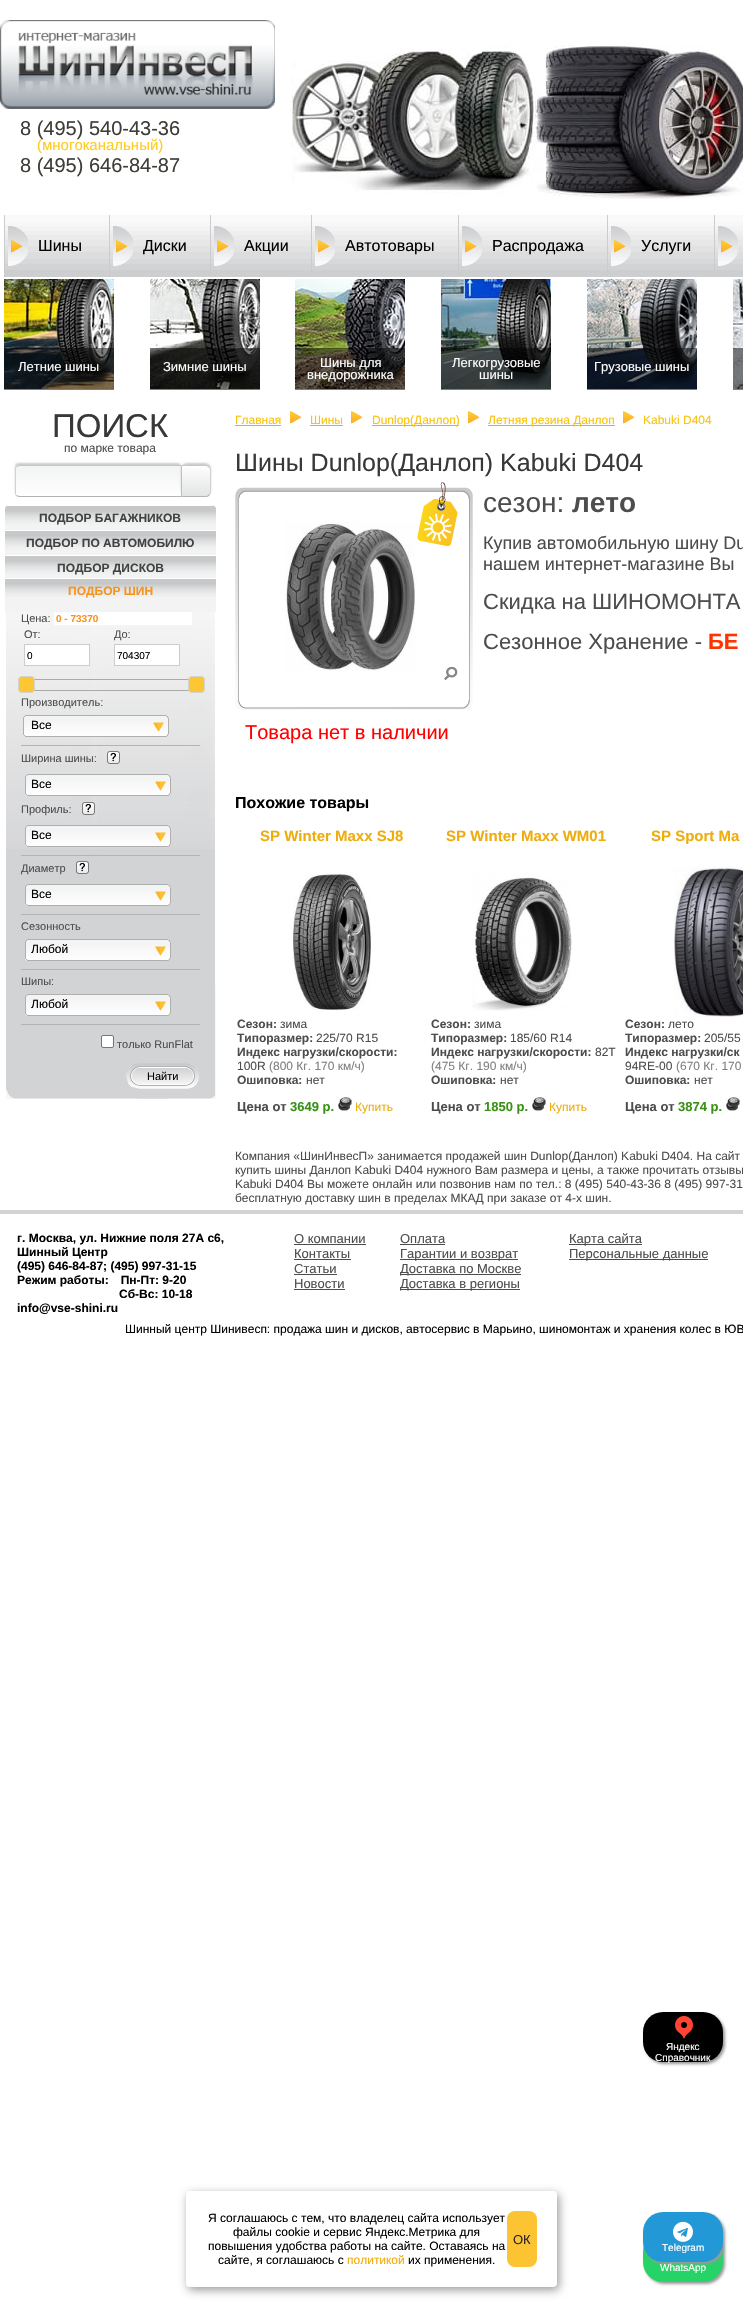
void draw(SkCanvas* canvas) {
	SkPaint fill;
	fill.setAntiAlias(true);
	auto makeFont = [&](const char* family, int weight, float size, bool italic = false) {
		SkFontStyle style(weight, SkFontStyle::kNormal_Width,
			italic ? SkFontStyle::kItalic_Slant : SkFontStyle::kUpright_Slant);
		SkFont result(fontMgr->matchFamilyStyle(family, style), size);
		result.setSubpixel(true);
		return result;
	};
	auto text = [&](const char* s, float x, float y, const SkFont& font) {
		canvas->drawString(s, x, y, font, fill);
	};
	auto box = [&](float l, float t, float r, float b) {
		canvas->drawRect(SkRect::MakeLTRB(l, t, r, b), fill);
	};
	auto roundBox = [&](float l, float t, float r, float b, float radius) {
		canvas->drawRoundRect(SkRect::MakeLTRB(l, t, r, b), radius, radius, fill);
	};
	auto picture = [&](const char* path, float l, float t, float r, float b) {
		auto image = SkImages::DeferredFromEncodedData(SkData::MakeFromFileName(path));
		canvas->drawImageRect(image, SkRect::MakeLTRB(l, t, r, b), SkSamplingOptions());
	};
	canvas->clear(0xFFFFFFFF);
	picture("image0.png", 290, 45, 743, 199);
	picture("image1.png", 0, 20, 275, 109);
	picture("image2.png", 5, 215, 109, 277);
	fill.setColor(0xFFCCCCCC);
	box(4, 215, 5, 277);
	picture("image3.png", 8, 226, 28, 266);
	picture("image4.png", 110, 215, 210, 277);
	box(109, 215, 110, 277);
	picture("image3.png", 113, 226, 133, 266);
	picture("image4.png", 211, 215, 311, 277);
	box(210, 215, 211, 277);
	picture("image3.png", 214, 226, 234, 266);
	picture("image5.png", 312, 215, 458, 277);
	box(311, 215, 312, 277);
	picture("image3.png", 315, 226, 335, 266);
	picture("image6.png", 459, 215, 607, 277);
	box(458, 215, 459, 277);
	picture("image3.png", 462, 226, 482, 266);
	picture("image7.png", 608, 215, 714, 277);
	box(607, 215, 608, 277);
	picture("image3.png", 611, 226, 631, 266);
	picture("image8.png", 715, 215, 743, 277);
	box(714, 215, 715, 277);
	picture("image3.png", 718, 226, 738, 266);
	picture("image9.png", 4, 279, 114, 389);
	fill.setColor(0x80000000);
	box(4, 348, 114, 390);
	picture("image10.png", 150, 279, 260, 389);
	box(150, 348, 260, 390);
	picture("image11.png", 295, 279, 405, 389);
	box(295, 348, 405, 390);
	picture("image12.png", 441, 279, 551, 389);
	box(441, 348, 551, 390);
	picture("image13.png", 587, 279, 697, 389);
	box(587, 348, 697, 390);
	picture("image14.png", 733, 279, 743, 389);
	box(733, 348, 743, 390);
	fill.setColor(0x33000000);
	fill.setMaskFilter(SkMaskFilter::MakeBlur(kNormal_SkBlurStyle, 1));
	canvas->drawRoundRect(SkRect::MakeLTRB(15, 463, 181, 495), 4, 4, fill);
	fill.setMaskFilter(nullptr);
	canvas->save();
	canvas->clipPath(SkPathBuilder().moveTo(19, 465).lineTo(181, 465).lineTo(181, 497).lineTo(19, 497).cubicTo(17, 497, 15, 495, 15, 493).lineTo(15, 469).cubicTo(15, 467, 17, 465, 19, 465).close().detach(), true);
	{
		const SkColor colors[] = {0xFFF2F3F3, 0xFFFFFFFF};
		const float stops[] = {0, 1};
		const SkPoint ends[] = {{99, 436}, {99, 466}};
		fill.setShader(SkGradientShader::MakeLinear(ends, colors, stops, 2, SkTileMode::kClamp));
		fill.setAlpha(255);
	}
	box(15, 465, 19, 466);
	{
		const SkColor colors[] = {0xFFF2F3F3, 0xFFFFFFFF};
		const float stops[] = {0, 1};
		const SkPoint ends[] = {{99, 466}, {99, 496}};
		fill.setShader(SkGradientShader::MakeLinear(ends, colors, stops, 2, SkTileMode::kClamp));
		fill.setAlpha(255);
	}
	box(15, 466, 181, 496);
	{
		const SkColor colors[] = {0xFFF2F3F3, 0xFFFFFFFF};
		const float stops[] = {0, 1};
		const SkPoint ends[] = {{99, 496}, {99, 526}};
		fill.setShader(SkGradientShader::MakeLinear(ends, colors, stops, 2, SkTileMode::kClamp));
		fill.setAlpha(255);
	}
	box(15, 496, 19, 497);
	canvas->restore();
	fill.setShader(nullptr);
	fill.setColor(0xFFC6C7C7);
	canvas->drawPath(SkPathBuilder().moveTo(19, 465).lineTo(16, 466).lineTo(17, 467).lineTo(19, 466).lineTo(181, 466).lineTo(181, 465).close().detach(), fill);
	fill.setColor(0xFFB3B3B3);
	canvas->drawPath(SkPathBuilder().moveTo(181, 497).lineTo(181, 496).lineTo(19, 496).lineTo(17, 495).lineTo(16, 496).lineTo(19, 497).close().detach(), fill);
	fill.setColor(0xFFD1D2D2);
	canvas->drawPath(SkPathBuilder().moveTo(15, 469).lineTo(15, 493).cubicTo(15, 494, 15.5f, 495, 16, 496).lineTo(17, 495).cubicTo(16, 495, 16, 494, 16, 493).lineTo(16, 469).cubicTo(16, 468, 16, 467, 17, 467).lineTo(16, 466).cubicTo(15.5f, 467, 15, 468, 15, 469).close().detach(), fill);
	{
		const SkColor colors[] = {0xFFFFFFFF, 0xFFE2E3E4};
		const float stops[] = {0, 1};
		const SkPoint ends[] = {{196, 465}, {196, 497}};
		fill.setShader(SkGradientShader::MakeLinear(ends, colors, stops, 2, SkTileMode::kClamp));
		fill.setAlpha(255);
	}
	canvas->drawPath(SkPathBuilder().moveTo(181, 465).lineTo(205, 465).cubicTo(208.5f, 465, 211, 467.5f, 211, 471).lineTo(211, 491).cubicTo(211, 494.5f, 208.5f, 497, 205, 497).lineTo(181, 497).close().detach(), fill);
	canvas->save();
	canvas->clipPath(SkPathBuilder(SkPathFillType::kEvenOdd).moveTo(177, 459).lineTo(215, 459).lineTo(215, 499).lineTo(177, 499).close().moveTo(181, 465).lineTo(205, 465).cubicTo(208.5f, 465, 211, 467.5f, 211, 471).lineTo(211, 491).cubicTo(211, 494.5f, 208.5f, 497, 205, 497).lineTo(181, 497).close().detach(), true);
	fill.setShader(nullptr);
	fill.setColor(0x33000000);
	fill.setMaskFilter(SkMaskFilter::MakeBlur(kNormal_SkBlurStyle, 1));
	canvas->drawRoundRect(SkRect::MakeLTRB(181, 463, 211, 495), 6, 6, fill);
	fill.setMaskFilter(nullptr);
	canvas->restore();
	fill.setColor(0xFFC6C7C7);
	canvas->drawPath(SkPathBuilder().moveTo(181, 465).lineTo(182, 466).lineTo(205, 466).cubicTo(206.5f, 466, 208, 466.5f, 208.5f, 467.5f).lineTo(209.5f, 466.5f).cubicTo(208, 465.5f, 207, 465, 205, 465).close().detach(), fill);
	fill.setColor(0xFFD1D2D2);
	canvas->drawPath(SkPathBuilder().moveTo(211, 491).lineTo(211, 471).cubicTo(211, 469, 210.5f, 468, 209.5f, 466.5f).lineTo(208.5f, 467.5f).cubicTo(209.5f, 468, 210, 469.5f, 210, 471).lineTo(210, 491).cubicTo(210, 492.5f, 209.5f, 494, 208.5f, 494.5f).lineTo(209.5f, 495.5f).cubicTo(210.5f, 494, 211, 493, 211, 491).close().detach(), fill);
	fill.setColor(0xFFB3B3B3);
	canvas->drawPath(SkPathBuilder().moveTo(205, 497).cubicTo(207, 497, 208, 496.5f, 209.5f, 495.5f).lineTo(208.5f, 494.5f).cubicTo(208, 495.5f, 206.5f, 496, 205, 496).lineTo(182, 496).lineTo(181, 497).close().detach(), fill);
	fill.setColor(0xFFBFBFBF);
	canvas->drawPath(SkPathBuilder().moveTo(182, 466).lineTo(181, 465).lineTo(181, 497).lineTo(182, 496).close().detach(), fill);
	{
		const SkColor colors[] = {0xFFC7C8CA, 0xFFDCDDDE, 0xFFEAEBEB, 0xFFF3F3F3};
		const float stops[] = {0.2f, 0.4f, 0.6f, 0.8f};
		const SkPoint ends[] = {{111, 505}, {111, 612}};
		fill.setShader(SkGradientShader::MakeLinear(ends, colors, stops, 4, SkTileMode::kClamp));
		fill.setAlpha(255);
	}
	canvas->drawPath(SkPathBuilder().moveTo(10, 505).lineTo(211, 505).cubicTo(214, 505, 216, 507, 216, 510).lineTo(216, 612).lineTo(5, 612).lineTo(5, 510).cubicTo(5, 507, 7, 505, 10, 505).close().detach(), fill);
	canvas->save();
	canvas->clipPath(SkPathBuilder().moveTo(10, 505).lineTo(211, 505).cubicTo(214, 505, 216, 507, 216, 510).lineTo(216, 612).lineTo(5, 612).lineTo(5, 510).cubicTo(5, 507, 7, 505, 10, 505).close().detach(), true);
	{
		const SkColor colors[] = {0xFFC7C8CA, 0xFFDCDDDE, 0xFFEAEBEB, 0xFFF3F3F3};
		const float stops[] = {0.2f, 0.4f, 0.6f, 0.8f};
		const SkPoint ends[] = {{111, 506}, {111, 530}};
		fill.setShader(SkGradientShader::MakeLinear(ends, colors, stops, 4, SkTileMode::kClamp));
		fill.setAlpha(255);
	}
	box(5, 506, 216, 530);
	fill.setShader(nullptr);
	fill.setColor(0xFFFFFFFF);
	box(5, 505, 216, 506);
	canvas->restore();
	{
		const SkColor colors[] = {0xFFC7C8CA, 0xFFDCDDDE, 0xFFEAEBEB, 0xFFF3F3F3};
		const float stops[] = {0.2f, 0.4f, 0.6f, 0.8f};
		const SkPoint ends[] = {{111, 531}, {111, 555}};
		fill.setShader(SkGradientShader::MakeLinear(ends, colors, stops, 4, SkTileMode::kClamp));
		fill.setAlpha(255);
	}
	box(5, 531, 216, 555);
	fill.setShader(nullptr);
	fill.setColor(0xFFFFFFFF);
	box(5, 530, 216, 531);
	{
		const SkColor colors[] = {0xFFC7C8CA, 0xFFDCDDDE, 0xFFEAEBEB, 0xFFF3F3F3};
		const float stops[] = {0.2f, 0.4f, 0.6f, 0.8f};
		const SkPoint ends[] = {{111, 556}, {111, 580}};
		fill.setShader(SkGradientShader::MakeLinear(ends, colors, stops, 4, SkTileMode::kClamp));
		fill.setAlpha(255);
	}
	box(5, 556, 216, 578);
	fill.setShader(nullptr);
	fill.setColor(0xFFFFFFFF);
	box(5, 555, 216, 556);
	{
		const SkColor colors[] = {0xFFC7C8CA, 0xFFDCDDDE, 0xFFEAEBEB, 0xFFF3F3F3};
		const float stops[] = {0.2f, 0.4f, 0.6f, 0.8f};
		const SkPoint ends[] = {{111, 579}, {111, 603}};
		fill.setShader(SkGradientShader::MakeLinear(ends, colors, stops, 4, SkTileMode::kClamp));
		fill.setAlpha(255);
	}
	box(5, 579, 216, 597);
	fill.setShader(nullptr);
	fill.setColor(0xFFFFFFFF);
	box(5, 578, 216, 579);
	picture("image15.png", 6, 983, 216, 1099);
	fill.setColor(0xFFD2D3D5);
	box(6, 849, 215, 1090);
	picture("image16.png", 6, 612, 215, 849);
	fill.setColor(0xFFFFFFFF);
	box(54, 612, 192, 625);
	canvas->drawRect(SkRect::MakeLTRB(24.5f, 644.5f, 89.5f, 665.5f), fill);
	fill.setStyle(SkPaint::kStroke_Style);
	fill.setStrokeWidth(1);
	fill.setColor(0xFFCCCCCC);
	canvas->drawRect(SkRect::MakeLTRB(24.5f, 644.5f, 89.5f, 665.5f), fill);
	fill.setStyle(SkPaint::kFill_Style);
	fill.setColor(0xFFFFFFFF);
	canvas->drawRect(SkRect::MakeLTRB(114.5f, 644.5f, 179.5f, 665.5f), fill);
	fill.setStyle(SkPaint::kStroke_Style);
	fill.setColor(0xFFCCCCCC);
	canvas->drawRect(SkRect::MakeLTRB(114.5f, 644.5f, 179.5f, 665.5f), fill);
	fill.setColor(0xFFAAAAAA);
	canvas->drawRect(SkRect::MakeLTRB(25.5f, 679.5f, 196.5f, 690.5f), fill);
	fill.setStyle(SkPaint::kFill_Style);
	fill.setColor(0xFFFDC633);
	canvas->drawRoundRect(SkRect::MakeLTRB(18.5f, 676.5f, 34.5f, 692.5f), 3.5f, 3.5f, fill);
	fill.setStyle(SkPaint::kStroke_Style);
	fill.setColor(0xFFD3D3D3);
	canvas->drawRoundRect(SkRect::MakeLTRB(18.5f, 676.5f, 34.5f, 692.5f), 3.5f, 3.5f, fill);
	fill.setStyle(SkPaint::kFill_Style);
	fill.setColor(0xFFFDC633);
	canvas->drawRoundRect(SkRect::MakeLTRB(188.5f, 676.5f, 204.5f, 692.5f), 3.5f, 3.5f, fill);
	fill.setStyle(SkPaint::kStroke_Style);
	fill.setColor(0xFFD3D3D3);
	canvas->drawRoundRect(SkRect::MakeLTRB(188.5f, 676.5f, 204.5f, 692.5f), 3.5f, 3.5f, fill);
	fill.setStyle(SkPaint::kFill_Style);
	fill.setColor(0xFFB3B4B3);
	box(21, 745, 200, 746);
	picture("image17.png", 23, 715, 169, 737);
	box(21, 855, 200, 856);
	picture("image18.png", 107, 751, 120, 764);
	picture("image19.png", 25, 774, 171, 796);
	picture("image20.png", 82, 802, 95, 815);
	picture("image21.png", 25, 825, 171, 847);
	box(21, 914, 200, 915);
	picture("image22.png", 76, 861, 89, 874);
	picture("image23.png", 25, 884, 171, 906);
	box(21, 969, 200, 970);
	picture("image23.png", 25, 939, 171, 961);
	box(21, 1024, 200, 1025);
	picture("image23.png", 25, 994, 171, 1016);
	fill.setColor(0xFFFFFFFF);
	canvas->drawRoundRect(SkRect::MakeLTRB(101.5f, 1035.5f, 113.5f, 1047.5f), 1.5f, 1.5f, fill);
	fill.setStyle(SkPaint::kStroke_Style);
	fill.setColor(0xFF767676);
	canvas->drawRoundRect(SkRect::MakeLTRB(101.5f, 1035.5f, 113.5f, 1047.5f), 1.5f, 1.5f, fill);
	picture("image24.png", 126, 1063, 200, 1089);
	picture("image25.png", 7, 1090, 215, 1099);
	fill.setStyle(SkPaint::kFill_Style);
	fill.setColor(0xFFEEAD0E);
	box(235, 425, 281, 426);
	picture("image26.png", 290, 411, 302, 424);
	box(310, 425, 343, 426);
	picture("image26.png", 351, 411, 363, 424);
	box(372, 425, 459, 426);
	picture("image26.png", 468, 411, 480, 424);
	box(488, 425, 615, 426);
	picture("image26.png", 623, 411, 635, 424);
	picture("image27.png", 235, 487, 473, 710);
	picture("image28.png", 417, 482, 458, 546);
	picture("image29.png", 285, 522, 417, 671);
	picture("image30.png", 444, 667, 458, 680);
	picture("image31.png", 293, 873, 371, 1010);
	picture("image32.png", 338, 1097, 352, 1111);
	picture("image33.png", 472, 873, 572, 1011);
	picture("image32.png", 532, 1097, 546, 1111);
	picture("image34.png", 674, 867, 743, 1017);
	picture("image35.png", 726, 1097, 740, 1111);
	fill.setColor(0xFFD2D3D5);
	box(0, 1210, 743, 1214);
	fill.setColor(0xFF4D4D4D);
	box(294, 1244, 366, 1245);
	box(294, 1259, 351, 1260);
	box(294, 1274, 337, 1275);
	box(294, 1289, 345, 1290);
	box(400, 1244, 445, 1245);
	box(400, 1259, 518, 1260);
	box(400, 1274, 521, 1275);
	box(400, 1289, 520, 1290);
	box(569, 1244, 642, 1245);
	box(569, 1259, 708, 1260);
	fill.setColor(0x66000000);
	fill.setMaskFilter(SkMaskFilter::MakeBlur(kNormal_SkBlurStyle, 5));
	canvas->drawRoundRect(SkRect::MakeLTRB(188, 2194, 559, 2290), 4, 4, fill);
	fill.setMaskFilter(nullptr);
	fill.setColor(0xFFFFFFFF);
	roundBox(186, 2191, 557, 2287, 4);
	fill.setColor(0xFFFCC333);
	roundBox(507, 2211, 537, 2267, 8);
	fill.setColor(0xFF999999);
	fill.setMaskFilter(SkMaskFilter::MakeBlur(kNormal_SkBlurStyle, 1.5f));
	canvas->drawRoundRect(SkRect::MakeLTRB(645, 2014, 725, 2064), 20, 20, fill);
	fill.setMaskFilter(nullptr);
	fill.setColor(0xFF000000);
	roundBox(643, 2012, 723, 2062, 20);
	picture("image36.png", 675, 2016, 693, 2039);
	fill.setColor(0xFF999999);
	fill.setMaskFilter(SkMaskFilter::MakeBlur(kNormal_SkBlurStyle, 1.5f));
	canvas->drawRoundRect(SkRect::MakeLTRB(645, 2234, 725, 2284), 20, 20, fill);
	fill.setMaskFilter(nullptr);
	fill.setColor(0xFF25D366);
	roundBox(643, 2232, 723, 2282, 20);
	fill.setColor(0xFF999999);
	fill.setMaskFilter(SkMaskFilter::MakeBlur(kNormal_SkBlurStyle, 1.5f));
	canvas->drawRoundRect(SkRect::MakeLTRB(645, 2214, 725, 2264), 20, 20, fill);
	fill.setMaskFilter(nullptr);
	fill.setColor(0xFF2398D6);
	roundBox(643, 2212, 723, 2262, 20);
	picture("image37.png", 673, 2221, 693, 2242);
	auto font1 = makeFont("Liberation Sans", 400, 20);
	fill.setColor(0xFF3C3E38);
	text("8 (495) 540-43-36", 20, 135, font1);
	auto font2 = makeFont("Liberation Sans", 400, 15);
	fill.setColor(0xFFFFCC20);
	text("(многоканальный)", 37, 150, font2);
	fill.setColor(0xFF3C3E38);
	text("8 (495) 646-84-87", 20, 172, font1);
	auto font3 = makeFont("Liberation Sans", 400, 16);
	fill.setColor(0xFF000000);
	text("Шины", 38, 251, font3);
	text("Диски", 143, 251, font3);
	text("Акции", 244, 251, font3);
	text("Автотовары", 345, 251, font3);
	text("Распродажа", 492, 251, font3);
	text("Услуги", 641, 251, font3);
	auto font4 = makeFont("Liberation Sans", 400, 13);
	fill.setColor(0xFFFFFFFF);
	text("Летние шины", 18, 371, font4);
	text("Зимние шины", 163, 371, font4);
	text("Шины для", 320, 367, font4);
	text("внедорожника", 307, 379, font4);
	text("Легкогрузовые", 452, 367, font4);
	text("шины", 479, 379, font4);
	text("Грузовые шины", 594, 371, font4);
	auto font5 = makeFont("Liberation Sans", 400, 33);
	fill.setColor(0xFF383839);
	text("ПОИСК", 52, 437, font5);
	auto font6 = makeFont("Liberation Sans", 400, 12);
	fill.setColor(0xFF4D4D4D);
	text("по марке товара", 64, 452, font6);
	auto font7 = makeFont("Liberation Sans", 700, 12);
	fill.setColor(0xFF424242);
	text("ПОДБОР БАГАЖНИКОВ", 39, 522, font7);
	text("ПОДБОР ПО АВТОМОБИЛЮ", 26, 547, font7);
	text("ПОДБОР ДИСКОВ", 57, 572, font7);
	fill.setColor(0xFFF6931F);
	text("ПОДБОР ШИН", 68, 595, font7);
	auto font8 = makeFont("Liberation Sans", 400, 11);
	fill.setColor(0xFF4D4D4D);
	text("Цена:", 21, 622, font8);
	auto font9 = makeFont("Liberation Sans", 700, 10);
	fill.setColor(0xFFF6931F);
	text("0 - 73370", 56, 622, font9);
	fill.setColor(0xFF4D4D4D);
	text("От:", 24, 638, font8);
	text("До:", 114, 638, font8);
	auto font10 = makeFont("Liberation Sans", 400, 10);
	fill.setColor(0xFF000000);
	text("0", 27, 659, font10);
	text("704307", 117, 659, font10);
	fill.setColor(0xFF4D4D4D);
	text("Производитель:", 21, 706, font8);
	fill.setColor(0xFF000000);
	text("Все", 31, 729, font6);
	fill.setColor(0xFF4D4D4D);
	text("Ширина шины:", 21, 762, font8);
	fill.setColor(0xFF000000);
	text("Все", 31, 788, font6);
	fill.setColor(0xFF4D4D4D);
	text("Профиль:", 21, 813, font8);
	fill.setColor(0xFF000000);
	text("Все", 31, 839, font6);
	fill.setColor(0xFF4D4D4D);
	text("Диаметр", 21, 872, font8);
	fill.setColor(0xFF000000);
	text("Все", 31, 898, font6);
	fill.setColor(0xFF4D4D4D);
	text("Сезонность", 21, 930, font8);
	fill.setColor(0xFF000000);
	text("Любой", 31, 953, font6);
	fill.setColor(0xFF4D4D4D);
	text("Шипы:", 21, 985, font8);
	fill.setColor(0xFF000000);
	text("Любой", 31, 1008, font6);
	fill.setColor(0xFF4D4D4D);
	text("только RunFlat", 117, 1048, font8);
	fill.setColor(0xFF000000);
	text("Найти", 147, 1080, font8);
	fill.setColor(0xFFF8C311);
	text("Главная", 235, 424, font6);
	text("Шины", 310, 424, font6);
	text("Dunlop(Данлоп)", 372, 424, font6);
	text("Летняя резина Данлоп", 488, 424, font6);
	text("Kabuki D404", 643, 424, font6);
	auto font11 = makeFont("Liberation Sans", 400, 25);
	fill.setColor(0xFF383839);
	text("Шины Dunlop(Данлоп) Kabuki D404", 235, 471, font11);
	auto font12 = makeFont("Liberation Sans", 400, 28);
	fill.setColor(0xFF4D4D4D);
	text("cезон:", 483, 512, font12);
	auto font13 = makeFont("Liberation Sans", 700, 28);
	text("лето", 572, 512, font13);
	auto font14 = makeFont("Liberation Sans", 400, 18);
	text("Купив автомобильную шину Du", 483, 549, font14);
	text("нашем интернет-магазине Вы", 483, 570, font14);
	auto font15 = makeFont("Liberation Sans", 400, 22);
	text("Скидка на ШИНОМОНТА", 483, 609, font15);
	text("Сезонное Хранение -", 483, 649, font15);
	auto font16 = makeFont("Liberation Sans", 700, 22);
	fill.setColor(0xFFFF3300);
	text("БЕ", 708, 649, font16);
	fill.setColor(0xFFFF0000);
	text("Товара нет в наличии", 245, 739, font1);
	auto font17 = makeFont("Liberation Sans", 700, 16);
	fill.setColor(0xFF000000);
	text("Похожие товары", 235, 808, font17);
	auto font18 = makeFont("Liberation Sans", 700, 15);
	fill.setColor(0xFFEEAD0E);
	text("SP Winter Maxx SJ8", 260, 841, font18);
	fill.setColor(0xFF4D4D4D);
	text("Сезон:", 237, 1028, font7);
	text("зима", 280, 1028, font6);
	text("Типоразмер:", 237, 1042, font7);
	text("225/70 R15", 316, 1042, font6);
	text("Индекс нагрузки/скорости:", 237, 1056, font7);
	text("100R", 237, 1070, font6);
	fill.setColor(0xFF808080);
	text("(800 Кг. 170 км/ч)", 269, 1070, font6);
	fill.setColor(0xFF4D4D4D);
	text("Ошиповка:", 237, 1084, font7);
	text("нет", 306, 1084, font6);
	auto font19 = makeFont("Liberation Sans", 700, 13);
	text("Цена от", 237, 1111, font19);
	fill.setColor(0xFF399217);
	text("3649 р.", 290, 1111, font19);
	fill.setColor(0xFFEEAD0E);
	text("Купить", 355, 1111, font6);
	text("SP Winter Maxx WM01", 446, 841, font18);
	fill.setColor(0xFF4D4D4D);
	text("Сезон:", 431, 1028, font7);
	text("зима", 474, 1028, font6);
	text("Типоразмер:", 431, 1042, font7);
	text("185/60 R14", 510, 1042, font6);
	text("Индекс нагрузки/скорости:", 431, 1056, font7);
	text("82T", 595, 1056, font6);
	fill.setColor(0xFF808080);
	text("(475 Кг. 190 км/ч)", 431, 1070, font6);
	fill.setColor(0xFF4D4D4D);
	text("Ошиповка:", 431, 1084, font7);
	text("нет", 500, 1084, font6);
	text("Цена от", 431, 1111, font19);
	fill.setColor(0xFF399217);
	text("1850 р.", 484, 1111, font19);
	fill.setColor(0xFFEEAD0E);
	text("Купить", 549, 1111, font6);
	text("SP Sport Ma", 651, 841, font18);
	fill.setColor(0xFF4D4D4D);
	text("Сезон:", 625, 1028, font7);
	text("лето", 668, 1028, font6);
	text("Типоразмер:", 625, 1042, font7);
	text("205/55", 704, 1042, font6);
	text("Индекс нагрузки/ск", 625, 1056, font7);
	text("94RE-00", 625, 1070, font6);
	fill.setColor(0xFF808080);
	text("(670 Кг. 170", 676, 1070, font6);
	fill.setColor(0xFF4D4D4D);
	text("Ошиповка:", 625, 1084, font7);
	text("нет", 694, 1084, font6);
	text("Цена от", 625, 1111, font19);
	fill.setColor(0xFF399217);
	text("3874 р.", 678, 1111, font19);
	fill.setColor(0xFF4D4D4D);
	text("Компания «ШинИнвесП» занимается продажей шин Dunlop(Данлоп) Kabuki D404. На сайт", 235, 1160, font6);
	text("купить шины Данлоп Kabuki D404 нужного Вам размера и цены, а также прочитать отзывы", 235, 1174, font6);
	text("Kabuki D404 Вы можете онлайн или позвонив нам по тел.: 8 (495) 540-43-36 8 (495) 997-31", 235, 1188, font6);
	text("бесплатную доставку шин в пределах МКАД при заказе от 4-х шин.", 235, 1202, font6);
	fill.setColor(0xFF000000);
	text("г. Москва, ул. Нижние поля 27А с6,", 17, 1242, font7);
	text("Шинный Центр", 17, 1256, font7);
	text("(495) 646-84-87; (495) 997-31-15", 17, 1270, font7);
	text("Режим работы: Пн-Пт: 9-20", 17, 1284, font7);
	text("Сб-Вс: 10-18", 119, 1298, font7);
	text("info@vse-shini.ru", 17, 1312, font7);
	fill.setColor(0xFF4D4D4D);
	text("О компании", 294, 1243, font4);
	text("Контакты", 294, 1258, font4);
	text("Статьи", 294, 1273, font4);
	text("Новости", 294, 1288, font4);
	text("Оплата", 400, 1243, font4);
	text("Гарантии и возврат", 400, 1258, font4);
	text("Доставка по Москве", 400, 1273, font4);
	text("Доставка в регионы", 400, 1288, font4);
	text("Карта сайта", 569, 1243, font4);
	text("Персональные данные", 569, 1258, font4);
	fill.setColor(0xFF000000);
	text("Я соглашаюсь с тем, что владелец сайта использует", 208, 2222, font6);
	text("файлы cookie и сервис Яндекс.Метрика для", 233, 2236, font6);
	text("повышения удобства работы на сайте. Оставаясь на", 208, 2250, font6);
	text("сайте, я соглашаюсь с", 218, 2264, font6);
	fill.setColor(0xFFEEAD0E);
	text("политикой", 347, 2264, font6);
	fill.setColor(0xFF000000);
	text("их применения.", 408, 2264, font6);
	fill.setColor(0xFF282828);
	text("ОК", 513, 2244, font4);
	fill.setColor(0xFF000000);
	text("Шинный центр Шинивесп: продажа шин и дисков, автосервис в Марьино, шиномонтаж и хранения колес в ЮВ", 125, 1333, font6);
	fill.setColor(0xFFFFFFFF);
	text("Яндекс", 666, 2050, font10);
	text("Справочник", 655, 2061, font10);
	text("Telegram", 662, 2251, font10);
	text("WhatsApp", 660, 2271, font10);
}
